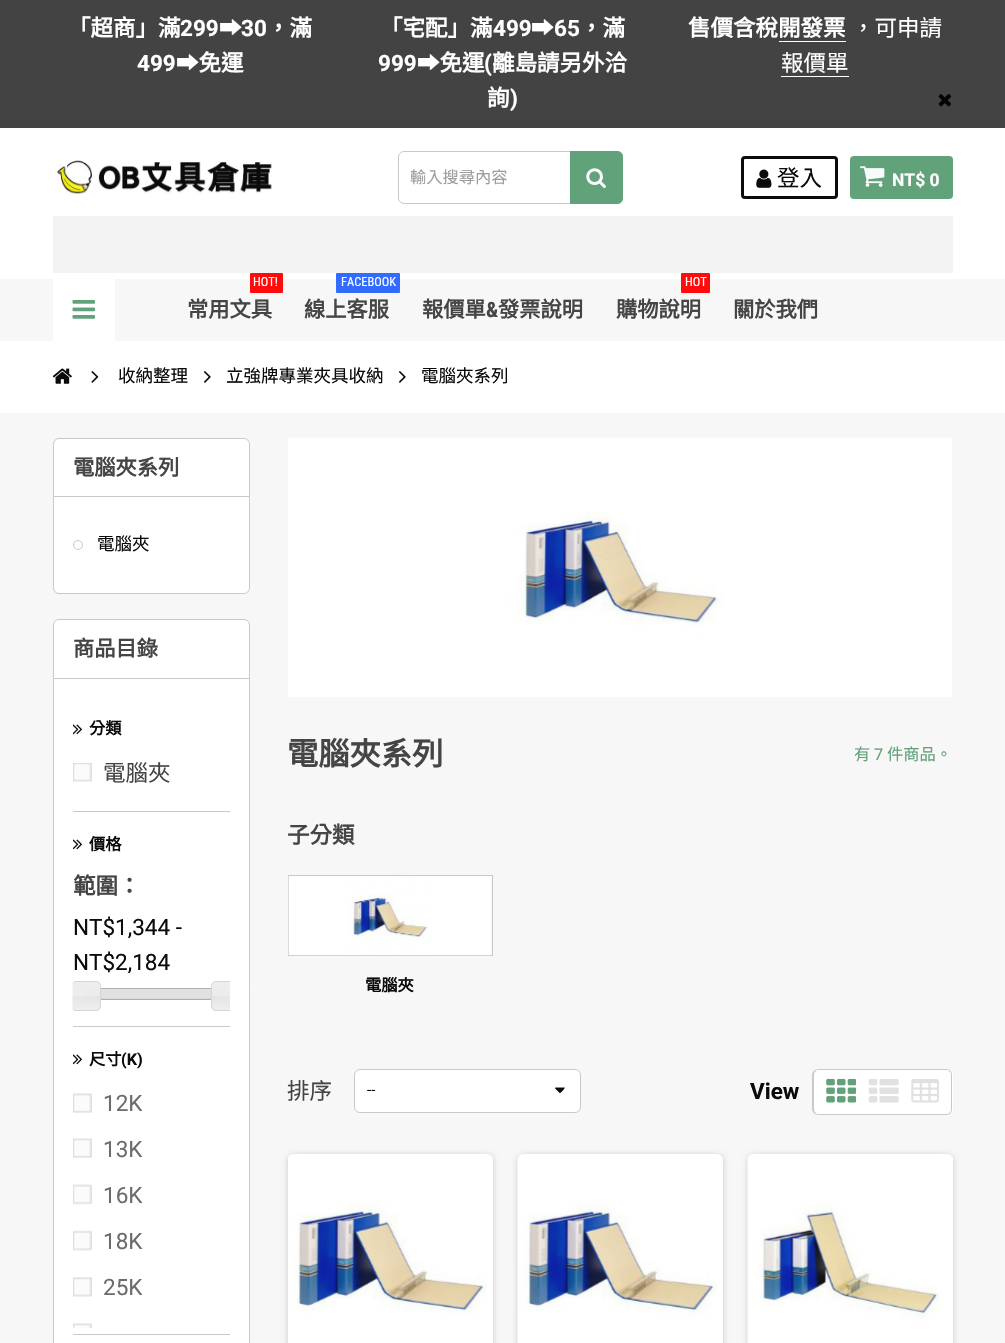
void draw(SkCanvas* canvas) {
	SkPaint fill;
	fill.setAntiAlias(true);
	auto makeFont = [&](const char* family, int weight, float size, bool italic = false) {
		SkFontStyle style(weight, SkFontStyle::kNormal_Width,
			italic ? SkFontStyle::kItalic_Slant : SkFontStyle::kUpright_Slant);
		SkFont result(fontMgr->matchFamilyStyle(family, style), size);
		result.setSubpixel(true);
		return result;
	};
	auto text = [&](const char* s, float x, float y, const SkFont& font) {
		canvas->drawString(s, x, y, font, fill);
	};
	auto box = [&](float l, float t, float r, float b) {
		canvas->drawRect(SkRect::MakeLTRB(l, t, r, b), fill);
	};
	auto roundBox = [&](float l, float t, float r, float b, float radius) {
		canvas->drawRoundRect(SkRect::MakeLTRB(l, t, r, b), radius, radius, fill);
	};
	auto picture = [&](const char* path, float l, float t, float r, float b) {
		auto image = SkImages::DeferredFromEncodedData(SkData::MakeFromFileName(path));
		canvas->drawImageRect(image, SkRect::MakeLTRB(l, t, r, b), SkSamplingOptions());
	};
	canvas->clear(0xFFFFFFFF);
	fill.setColor(0xFF434343);
	box(0, 0, 1005, 128);
	fill.setColor(0xFFFFFFFF);
	box(779, 41, 846, 42);
	box(781, 76, 849, 77);
	picture("image0.png", 938, 94, 951, 107);
	picture("image1.png", 53, 160, 272, 194);
	fill.setStyle(SkPaint::kStroke_Style);
	fill.setStrokeWidth(1);
	fill.setColor(0xFFC9C9C9);
	canvas->drawRoundRect(SkRect::MakeLTRB(398.5f, 151.5f, 622.5f, 203.5f), 5.5f, 5.5f, fill);
	fill.setStyle(SkPaint::kFill_Style);
	fill.setColor(0xFF61A27A);
	canvas->drawPath(SkPathBuilder().moveTo(570, 151).lineTo(617, 151).cubicTo(620.5f, 151, 623, 153.5f, 623, 157).lineTo(623, 198).cubicTo(623, 201.5f, 620.5f, 204, 617, 204).lineTo(570, 204).close().detach(), fill);
	picture("image2.png", 586, 168, 606, 188);
	fill.setStyle(SkPaint::kStroke_Style);
	fill.setStrokeWidth(3);
	fill.setColor(0xFF0B0B0B);
	canvas->drawRoundRect(SkRect::MakeLTRB(742.5f, 157.5f, 836.5f, 197.5f), 2.5f, 2.5f, fill);
	picture("image3.png", 756, 169, 772, 188);
	fill.setStyle(SkPaint::kFill_Style);
	fill.setColor(0xFF61A27A);
	roundBox(850, 156, 953, 199, 4);
	picture("image4.png", 860, 166, 885, 187);
	fill.setColor(0xFFF3F3F3);
	box(53, 216, 953, 273);
	fill.setColor(0xFFF7F7F7);
	box(0, 279, 1005, 341);
	fill.setColor(0xFFFFFFFF);
	box(53, 279, 115, 341);
	picture("image5.png", 72, 300, 95, 319);
	fill.setColor(0xFFFF0B0B);
	roundBox(250, 273, 283, 293, 1);
	fill.setColor(0xFF316BFF);
	roundBox(336, 273, 400, 293, 1);
	fill.setColor(0xFFFF0B0B);
	roundBox(681, 273, 710, 293, 1);
	picture("image6.png", 52, 368, 72, 384);
	picture("image7.png", 91, 371, 99, 383);
	picture("image8.png", 204, 371, 211, 383);
	picture("image8.png", 399, 371, 406, 383);
	fill.setColor(0xFFF7F7F7);
	box(0, 413, 1005, 1343);
	fill.setColor(0xFFFFFFFF);
	canvas->drawRoundRect(SkRect::MakeLTRB(53.5f, 438.5f, 249.5f, 593.5f), 5.5f, 5.5f, fill);
	fill.setStyle(SkPaint::kStroke_Style);
	fill.setStrokeWidth(1);
	fill.setColor(0xFFC9C9C9);
	canvas->drawRoundRect(SkRect::MakeLTRB(53.5f, 438.5f, 249.5f, 593.5f), 5.5f, 5.5f, fill);
	fill.setStyle(SkPaint::kFill_Style);
	box(54, 496, 249, 497);
	fill.setStyle(SkPaint::kStroke_Style);
	canvas->drawCircle(78, 545, 4.5f, fill);
	fill.setStyle(SkPaint::kFill_Style);
	fill.setColor(0xFFFFFFFF);
	canvas->drawRoundRect(SkRect::MakeLTRB(53.5f, 619.5f, 249.5f, 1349.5f), 5.5f, 5.5f, fill);
	fill.setStyle(SkPaint::kStroke_Style);
	fill.setColor(0xFFC9C9C9);
	canvas->drawRoundRect(SkRect::MakeLTRB(53.5f, 619.5f, 249.5f, 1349.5f), 5.5f, 5.5f, fill);
	fill.setStyle(SkPaint::kFill_Style);
	box(54, 678, 249, 679);
	box(73, 811, 230, 812);
	picture("image9.png", 73, 724, 82, 735);
	picture("image10.png", 73, 763, 92, 782);
	box(73, 1026, 230, 1027);
	picture("image9.png", 73, 839, 82, 850);
	fill.setStyle(SkPaint::kStroke_Style);
	fill.setColor(0xFFAEAEAE);
	canvas->drawRoundRect(SkRect::MakeLTRB(85.5f, 988.5f, 227.5f, 999.5f), 4.5f, 4.5f, fill);
	fill.setStyle(SkPaint::kFill_Style);
	fill.setColor(0xFFCECECE);
	roundBox(86, 989, 226, 999, 5);
	picture("image13.png", 86, 989, 226, 999);
	picture("image11.png", 72, 982, 101, 1011);
	canvas->save();
	canvas->clipRect(SkRect::MakeLTRB(73, 863, 230, 1014));
	fill.setStyle(SkPaint::kStroke_Style);
	fill.setColor(0xFFD5D5D5);
	canvas->drawRoundRect(SkRect::MakeLTRB(71.5f, 981.5f, 100.5f, 1010.5f), 4.5f, 4.5f, fill);
	canvas->restore();
	picture("image12.png", 212, 982, 230, 1011);
	canvas->save();
	canvas->clipRect(SkRect::MakeLTRB(73, 863, 230, 1014));
	canvas->drawRoundRect(SkRect::MakeLTRB(211.5f, 981.5f, 240.5f, 1010.5f), 4.5f, 4.5f, fill);
	canvas->restore();
	fill.setStyle(SkPaint::kFill_Style);
	fill.setColor(0xFFC9C9C9);
	box(73, 1334, 230, 1335);
	picture("image9.png", 73, 1054, 82, 1065);
	picture("image14.png", 73, 1093, 92, 1113);
	picture("image14.png", 73, 1138, 92, 1158);
	picture("image15.png", 73, 1184, 92, 1205);
	picture("image16.png", 73, 1230, 92, 1251);
	picture("image17.png", 73, 1277, 92, 1297);
	picture("image18.png", 73, 1323, 92, 1328);
	picture("image19.png", 288, 437, 952, 697);
	fill.setStyle(SkPaint::kStroke_Style);
	canvas->drawRect(SkRect::MakeLTRB(288.5f, 875.5f, 492.5f, 955.5f), fill);
	picture("image20.png", 288, 876, 491, 956);
	fill.setStyle(SkPaint::kFill_Style);
	fill.setColor(0xFFFFFFFF);
	canvas->drawRoundRect(SkRect::MakeLTRB(354.5f, 1069.5f, 580.5f, 1112.5f), 5.5f, 5.5f, fill);
	fill.setStyle(SkPaint::kStroke_Style);
	fill.setColor(0xFFC9C9C9);
	canvas->drawRoundRect(SkRect::MakeLTRB(354.5f, 1069.5f, 580.5f, 1112.5f), 5.5f, 5.5f, fill);
	canvas->save();
	canvas->clipPath(SkPathBuilder().moveTo(360, 1070).lineTo(575, 1070).cubicTo(578, 1070, 580, 1072, 580, 1075).lineTo(580, 1106).cubicTo(580, 1109, 578, 1111, 575, 1111).lineTo(360, 1111).cubicTo(357, 1111, 355, 1109, 355, 1106).lineTo(355, 1075).cubicTo(355, 1072, 357, 1070, 360, 1070).close().detach(), true);
	fill.setStyle(SkPaint::kFill_Style);
	fill.setColor(0xFFFFFFFF);
	roundBox(368, 1070, 580, 1111, 6);
	canvas->restore();
	picture("image21.png", 555, 1087, 565, 1093);
	fill.setStyle(SkPaint::kStroke_Style);
	fill.setStrokeWidth(2.5f);
	canvas->drawPath(SkPathBuilder().moveTo(564.5f, 1088.5f).lineTo(569.5f, 1093.5f).lineTo(574.5f, 1088.5f).detach(), fill);
	fill.setStyle(SkPaint::kFill_Style);
	canvas->drawPath(SkPathBuilder().moveTo(819, 1069).lineTo(856, 1069).lineTo(856, 1115).lineTo(819, 1115).cubicTo(815.5f, 1115, 813, 1112.5f, 813, 1109).lineTo(813, 1075).cubicTo(813, 1071.5f, 815.5f, 1069, 819, 1069).close().detach(), fill);
	fill.setColor(0xFFC9C9C9);
	canvas->drawPath(SkPathBuilder(SkPathFillType::kEvenOdd).moveTo(819, 1069).lineTo(856, 1069).lineTo(856, 1115).lineTo(819, 1115).cubicTo(815, 1115, 812, 1112, 812, 1109).lineTo(812, 1075).cubicTo(812, 1072, 815, 1069, 819, 1069).close().moveTo(819, 1070).lineTo(856, 1070).lineTo(856, 1114).lineTo(819, 1114).cubicTo(816, 1114, 814, 1112, 814, 1109).lineTo(814, 1075).cubicTo(814, 1072, 816, 1070, 819, 1070).close().detach(), fill);
	picture("image22.png", 826, 1078, 856, 1103);
	fill.setColor(0xFFFFFFFF);
	box(856, 1070, 899, 1114);
	fill.setColor(0xFFC9C9C9);
	box(856, 1069, 899, 1070);
	box(856, 1114, 899, 1115);
	picture("image23.png", 868, 1079, 899, 1103);
	fill.setColor(0xFFFFFFFF);
	canvas->drawPath(SkPathBuilder().moveTo(899, 1069).lineTo(947, 1069).cubicTo(950.5f, 1069, 953, 1071.5f, 953, 1075).lineTo(953, 1109).cubicTo(953, 1112.5f, 950.5f, 1115, 947, 1115).lineTo(899, 1115).close().detach(), fill);
	fill.setColor(0xFFC9C9C9);
	canvas->drawPath(SkPathBuilder(SkPathFillType::kEvenOdd).moveTo(899, 1069).lineTo(946, 1069).cubicTo(950, 1069, 952, 1072, 952, 1075).lineTo(952, 1109).cubicTo(952, 1112, 950, 1115, 946, 1115).lineTo(899, 1115).close().moveTo(899, 1070).lineTo(946, 1070).cubicTo(949, 1070, 951, 1072, 951, 1075).lineTo(951, 1109).cubicTo(951, 1112, 949, 1114, 946, 1114).lineTo(899, 1114).close().detach(), fill);
	picture("image24.png", 911, 1079, 939, 1103);
	fill.setMaskFilter(SkMaskFilter::MakeBlur(kNormal_SkBlurStyle, 3));
	canvas->drawRoundRect(SkRect::MakeLTRB(288, 1155, 493, 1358), 6, 6, fill);
	fill.setMaskFilter(nullptr);
	fill.setColor(0xFFFFFFFF);
	roundBox(288, 1154, 493, 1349, 6);
	picture("image25.png", 288, 1154, 488, 1318);
	fill.setColor(0xFFC9C9C9);
	fill.setMaskFilter(SkMaskFilter::MakeBlur(kNormal_SkBlurStyle, 3));
	canvas->drawRoundRect(SkRect::MakeLTRB(518, 1155, 723, 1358), 6, 6, fill);
	fill.setMaskFilter(nullptr);
	fill.setColor(0xFFFFFFFF);
	roundBox(518, 1154, 723, 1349, 6);
	picture("image26.png", 517, 1154, 718, 1343);
	fill.setColor(0xFFC9C9C9);
	fill.setMaskFilter(SkMaskFilter::MakeBlur(kNormal_SkBlurStyle, 3));
	canvas->drawRoundRect(SkRect::MakeLTRB(748, 1155, 953, 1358), 6, 6, fill);
	fill.setMaskFilter(nullptr);
	fill.setColor(0xFFFFFFFF);
	roundBox(748, 1154, 953, 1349, 6);
	picture("image27.png", 747, 1154, 953, 1343);
	auto font1 = makeFont("Noto Sans CJK TC", 700, 22.5f);
	text("「超商」滿", 68, 36, font1);
	auto font2 = makeFont("Roboto", 700, 22.5f);
	text("299", 180, 36, font2);
	text("➡", 219, 36, font1);
	text("30", 241, 36, font2);
	text("，滿", 267, 36, font1);
	text("499", 137, 71, font2);
	text("➡免運", 176, 71, font1);
	text("「宅配」滿", 380, 36, font1);
	text("499", 493, 36, font2);
	text("➡", 531, 36, font1);
	text("65", 554, 36, font2);
	text("，滿", 580, 36, font1);
	text("999", 378, 71, font2);
	text("➡免運", 417, 71, font1);
	text("(", 484, 71, font2);
	text("離島請另外洽", 492, 71, font1);
	text("詢", 487, 106, font1);
	text(")", 510, 106, font2);
	text("售價含稅開發票", 688, 36, font1);
	auto font3 = makeFont("Noto Sans CJK TC", 400, 22.5f);
	text("，可申請", 852, 36, font3);
	text("報價單", 781, 71, font3);
	auto font4 = makeFont("Noto Sans CJK TC", 400, 16.25f);
	fill.setColor(0xFF9D9D9D);
	text("輸入搜尋內容", 410, 183, font4);
	fill.setColor(0xFF0B0B0B);
	text("登入", 777, 186, font3);
	auto font5 = makeFont("Roboto", 700, 17.5f);
	fill.setColor(0xFFFFFFFF);
	text("NT$ 0", 892, 186, font5);
	auto font6 = makeFont("Roboto Condensed", 400, 12.5f);
	text("HOT!", 253, 286, font6);
	auto font7 = makeFont("Noto Sans CJK TC", 700, 21.25f);
	fill.setColor(0xFF454545);
	text("常用文具", 187, 317, font7);
	fill.setColor(0xFFFFFFFF);
	text("FACEBOOK", 341, 286, font6);
	fill.setColor(0xFF454545);
	text("線上客服", 304, 317, font7);
	text("報價單", 422, 317, font7);
	auto font8 = makeFont("Roboto Condensed", 700, 21.25f);
	text("&", 486, 317, font8);
	text("發票說明", 498, 317, font7);
	fill.setColor(0xFFFFFFFF);
	text("HOT", 685, 286, font6);
	fill.setColor(0xFF454545);
	text("購物說明", 616, 317, font7);
	text("關於我們", 733, 317, font7);
	auto font9 = makeFont("Noto Sans CJK TC", 400, 17.5f);
	fill.setColor(0xFF0B0B0B);
	text("收納整理", 118, 382, font9);
	text("立強牌專業夾具收納", 226, 382, font9);
	text("電腦夾系列", 421, 382, font9);
	fill.setColor(0xFF454545);
	text("電腦夾系列", 73, 475, font7);
	fill.setColor(0xFF0B0B0B);
	text("電腦夾", 97, 550, font9);
	fill.setColor(0xFF454545);
	text("商品目錄", 73, 656, font7);
	auto font10 = makeFont("Noto Sans CJK TC", 700, 16.25f);
	fill.setColor(0xFF0B0B0B);
	text("分類", 89, 734, font10);
	fill.setColor(0xFF454545);
	text("電腦夾", 103, 781, font3);
	fill.setColor(0xFF0B0B0B);
	text("價格", 89, 850, font10);
	fill.setColor(0xFF454545);
	text("範圍：", 73, 894, font1);
	auto font11 = makeFont("Roboto", 400, 22.5f);
	fill.setColor(0xFF0B0B0B);
	text("NT$1,344 -", 73, 935, font11);
	text("NT$2,184", 73, 970, font11);
	text("尺寸", 89, 1065, font10);
	auto font12 = makeFont("Roboto", 700, 16.25f);
	text("(K)", 121, 1065, font12);
	fill.setColor(0xFF6C6C6C);
	text("12K", 103, 1111, font11);
	text("13K", 103, 1157, font11);
	text("16K", 103, 1203, font11);
	text("18K", 103, 1249, font11);
	text("25K", 103, 1295, font11);
	auto font13 = makeFont("Noto Sans CJK TC", 700, 31.25f);
	fill.setColor(0xFF454545);
	text("電腦夾系列", 287, 765, font13);
	fill.setColor(0xFF61A27A);
	text("有", 854, 760, font4);
	auto font14 = makeFont("Roboto", 400, 16.25f);
	text("7", 874, 760, font14);
	text("件商品。", 887, 760, font4);
	fill.setColor(0xFF454545);
	text("子分類", 287, 843, font1);
	fill.setColor(0xFF0B0B0B);
	text("電腦夾", 365, 991, font10);
	fill.setColor(0xFF454545);
	text("排序", 287, 1099, font3);
	auto font15 = makeFont("Roboto", 400, 15);
	fill.setColor(0xFF0B0B0B);
	text("--", 367, 1095, font15);
	text("View", 750, 1099, font2);
}
